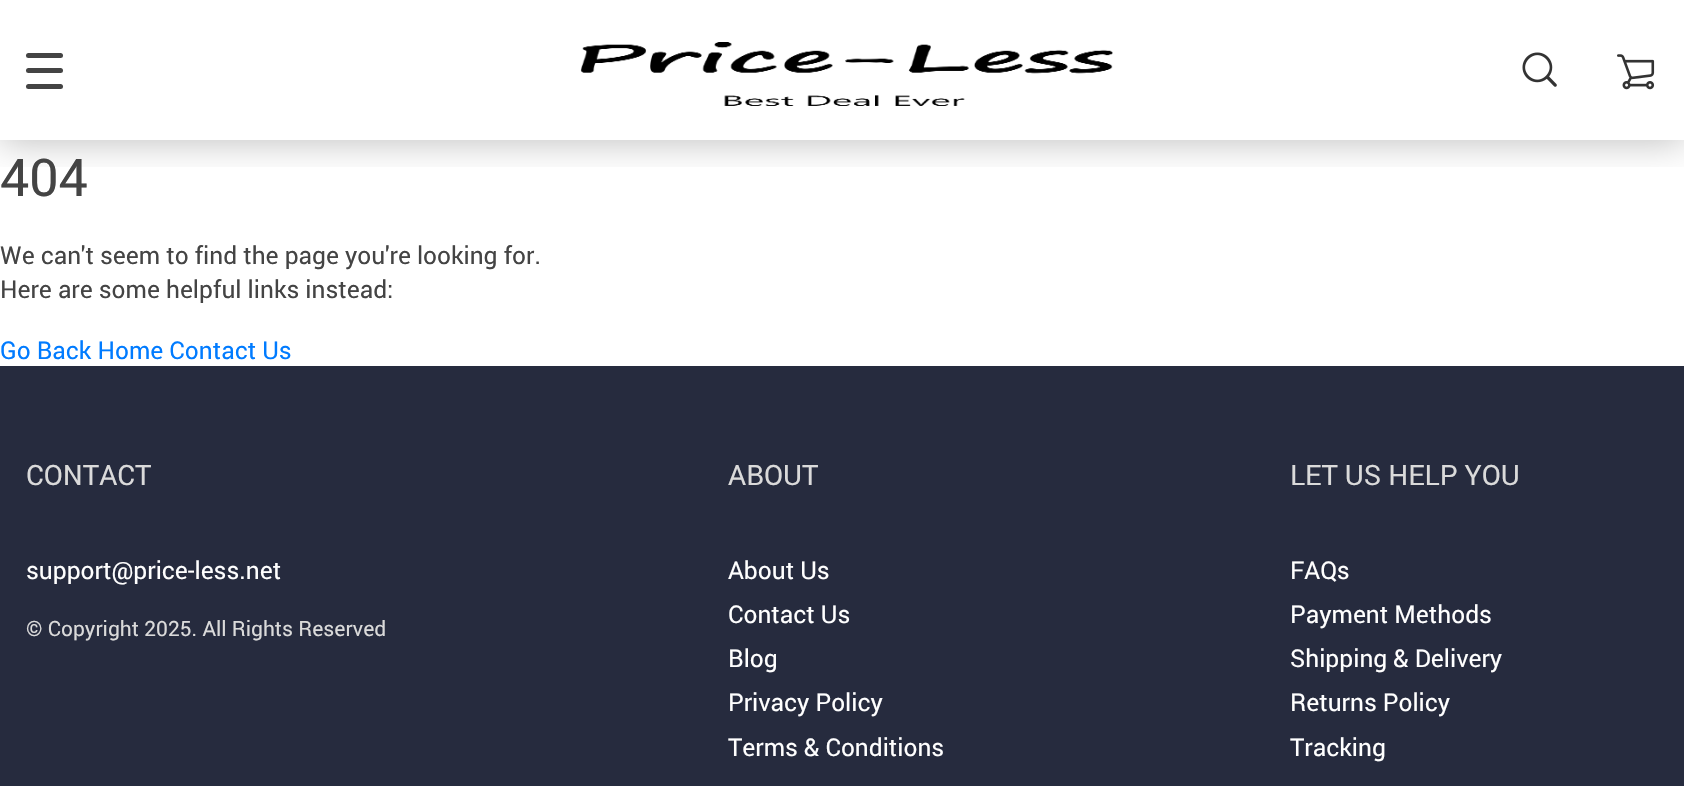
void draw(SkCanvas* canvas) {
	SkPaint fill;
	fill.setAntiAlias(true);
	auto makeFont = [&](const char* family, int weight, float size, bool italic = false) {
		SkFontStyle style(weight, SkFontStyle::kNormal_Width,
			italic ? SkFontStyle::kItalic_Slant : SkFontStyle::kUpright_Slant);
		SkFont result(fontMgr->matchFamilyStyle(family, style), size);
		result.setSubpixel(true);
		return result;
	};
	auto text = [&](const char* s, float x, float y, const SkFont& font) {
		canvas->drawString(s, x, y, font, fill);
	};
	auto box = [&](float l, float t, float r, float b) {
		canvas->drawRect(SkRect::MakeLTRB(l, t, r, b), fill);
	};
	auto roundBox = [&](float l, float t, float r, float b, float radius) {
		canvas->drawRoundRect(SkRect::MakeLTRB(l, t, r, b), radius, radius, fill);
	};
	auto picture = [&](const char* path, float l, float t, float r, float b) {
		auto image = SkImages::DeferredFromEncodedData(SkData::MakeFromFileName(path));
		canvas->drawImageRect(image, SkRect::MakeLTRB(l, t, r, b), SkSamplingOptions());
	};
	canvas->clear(0xFFFFFFFF);
	canvas->save();
	canvas->clipRect(SkRect::MakeLTRB(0, 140, 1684, 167));
	fill.setColor(0x40000000);
	fill.setMaskFilter(SkMaskFilter::MakeBlur(kNormal_SkBlurStyle, 17.5f));
	canvas->drawRect(SkRect::MakeLTRB(0, 2, 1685, 142), fill);
	fill.setMaskFilter(nullptr);
	canvas->restore();
	fill.setColor(0xFF444444);
	roundBox(26, 53, 63, 58, 2.5f);
	roundBox(26, 68, 63, 73, 2.5f);
	roundBox(26, 84, 63, 89, 2.5f);
	picture("image0.png", 580, 42, 1113, 106);
	picture("image1.png", 1522, 52, 1557, 87);
	picture("image2.png", 1617, 54, 1655, 90);
	fill.setColor(0xFF262B3E);
	box(0, 366, 1684, 786);
	auto font1 = makeFont("Roboto", 400, 52);
	fill.setColor(0xFF444444);
	text("404", 0, 196, font1);
	auto font2 = makeFont("Roboto", 400, 24.5f);
	text("We can't seem to find the page you're looking for.", 0, 264, font2);
	text("Here are some helpful links instead:", 0, 298, font2);
	fill.setColor(0xFF007BFF);
	text("Go Back Home Contact Us", 0, 359, font2);
	auto font3 = makeFont("Roboto", 400, 28);
	fill.setColor(0xFFDADADA);
	text("CONTACT", 26, 485, font3);
	fill.setColor(0xFFFFFFFF);
	text("support@price-less.net", 26, 579, font2);
	auto font4 = makeFont("Roboto", 400, 21);
	fill.setColor(0xFFDADADA);
	text("© Copyright 2025. All Rights Reserved", 26, 636, font4);
	text("ABOUT", 728, 485, font3);
	fill.setColor(0xFFFFFFFF);
	text("About Us", 728, 579, font2);
	text("Contact Us", 728, 623, font2);
	text("Blog", 728, 667, font2);
	text("Privacy Policy", 728, 711, font2);
	text("Terms & Conditions", 728, 756, font2);
	fill.setColor(0xFFDADADA);
	text("LET US HELP YOU", 1290, 485, font3);
	fill.setColor(0xFFFFFFFF);
	text("FAQs", 1290, 579, font2);
	text("Payment Methods", 1290, 623, font2);
	text("Shipping & Delivery", 1290, 667, font2);
	text("Returns Policy", 1290, 711, font2);
	text("Tracking", 1290, 756, font2);
}
